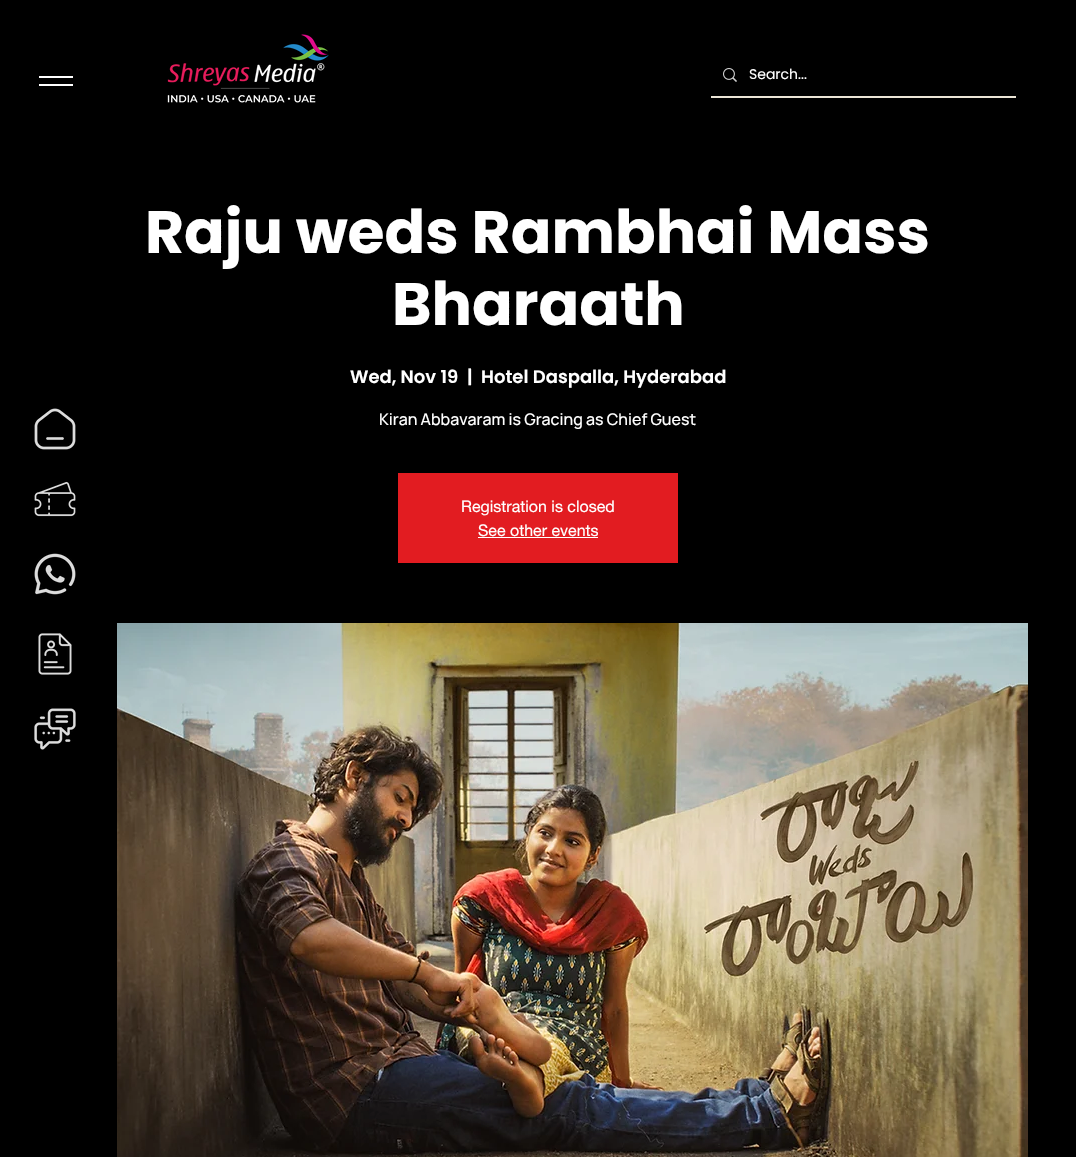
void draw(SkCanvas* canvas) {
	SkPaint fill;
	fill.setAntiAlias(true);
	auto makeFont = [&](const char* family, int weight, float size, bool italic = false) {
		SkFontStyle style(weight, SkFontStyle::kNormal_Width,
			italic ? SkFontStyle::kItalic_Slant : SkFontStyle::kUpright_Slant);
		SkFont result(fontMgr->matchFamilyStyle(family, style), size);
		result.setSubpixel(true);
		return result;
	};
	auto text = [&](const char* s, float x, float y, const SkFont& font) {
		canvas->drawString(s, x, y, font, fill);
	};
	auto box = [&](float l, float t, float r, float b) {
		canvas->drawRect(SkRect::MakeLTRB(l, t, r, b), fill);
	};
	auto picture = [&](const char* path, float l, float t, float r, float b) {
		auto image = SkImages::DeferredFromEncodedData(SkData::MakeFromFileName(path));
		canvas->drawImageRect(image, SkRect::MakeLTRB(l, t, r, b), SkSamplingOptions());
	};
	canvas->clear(0xFF000000);
	fill.setColor(0xFFFFFFFF);
	box(39, 76, 73, 78);
	box(39, 84, 73, 86);
	picture("image0.png", 167, 34, 329, 103);
	fill.setColor(0xFFEBE5D6);
	box(711, 96, 1016, 98);
	picture("image1.png", 723, 68, 737, 82);
	fill.setColor(0xFFE21C21);
	box(398, 473, 678, 563);
	fill.setColor(0xFFFFFFFF);
	box(478, 537, 598, 538);
	picture("image2.png", 117, 623, 1028, 1157);
	picture("image3.png", 34, 408, 76, 450);
	picture("image4.png", 34, 481, 76, 517);
	picture("image5.png", 34, 553, 76, 595);
	picture("image6.png", 38, 633, 72, 675);
	picture("image7.png", 34, 708, 76, 750);
	auto font1 = makeFont("Poppins", 400, 14);
	text("Search...", 749, 79, font1);
	auto font2 = makeFont("Poppins", 700, 60);
	text("Raju weds Rambhai Mass", 145, 253, font2);
	text("Bharaath", 392, 325, font2);
	auto font3 = makeFont("Poppins", 600, 18);
	text("Wed, Nov 19", 350, 383, font3);
	text("|", 467, 383, font3);
	text("Hotel Daspalla, Hyderabad", 481, 383, font3);
	auto font4 = makeFont("Manrope", 500, 16);
	text("Kiran Abbavaram is Gracing as Chief Guest", 379, 425, font4);
	auto font5 = makeFont("helvetica neue", 400, 16);
	text("Registration is closed", 461, 512, font5);
	text("See other events", 478, 536, font5);
}
